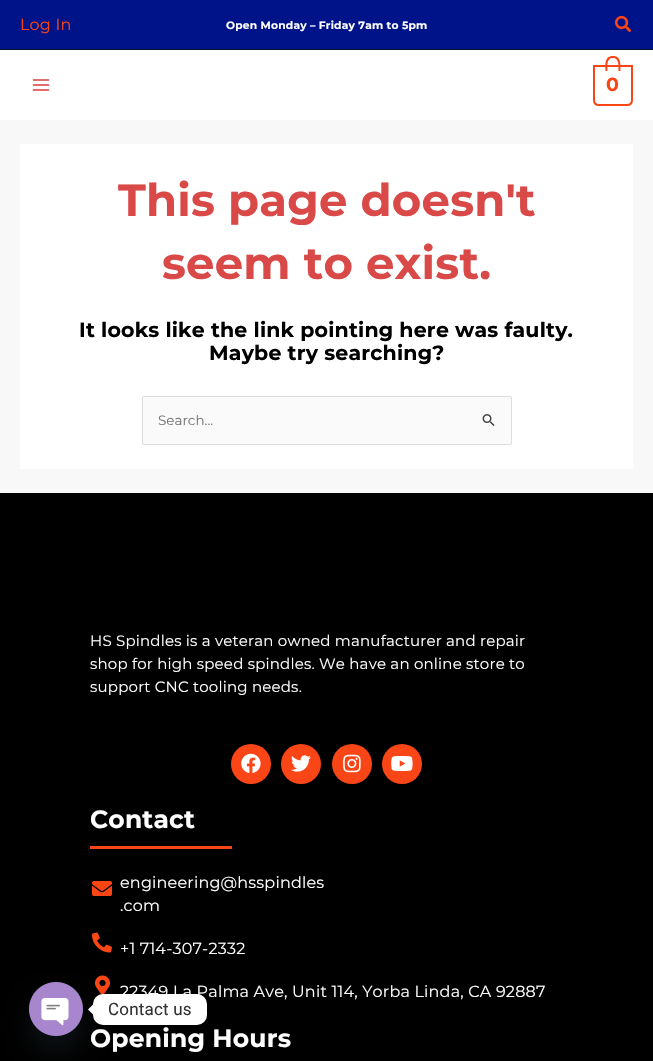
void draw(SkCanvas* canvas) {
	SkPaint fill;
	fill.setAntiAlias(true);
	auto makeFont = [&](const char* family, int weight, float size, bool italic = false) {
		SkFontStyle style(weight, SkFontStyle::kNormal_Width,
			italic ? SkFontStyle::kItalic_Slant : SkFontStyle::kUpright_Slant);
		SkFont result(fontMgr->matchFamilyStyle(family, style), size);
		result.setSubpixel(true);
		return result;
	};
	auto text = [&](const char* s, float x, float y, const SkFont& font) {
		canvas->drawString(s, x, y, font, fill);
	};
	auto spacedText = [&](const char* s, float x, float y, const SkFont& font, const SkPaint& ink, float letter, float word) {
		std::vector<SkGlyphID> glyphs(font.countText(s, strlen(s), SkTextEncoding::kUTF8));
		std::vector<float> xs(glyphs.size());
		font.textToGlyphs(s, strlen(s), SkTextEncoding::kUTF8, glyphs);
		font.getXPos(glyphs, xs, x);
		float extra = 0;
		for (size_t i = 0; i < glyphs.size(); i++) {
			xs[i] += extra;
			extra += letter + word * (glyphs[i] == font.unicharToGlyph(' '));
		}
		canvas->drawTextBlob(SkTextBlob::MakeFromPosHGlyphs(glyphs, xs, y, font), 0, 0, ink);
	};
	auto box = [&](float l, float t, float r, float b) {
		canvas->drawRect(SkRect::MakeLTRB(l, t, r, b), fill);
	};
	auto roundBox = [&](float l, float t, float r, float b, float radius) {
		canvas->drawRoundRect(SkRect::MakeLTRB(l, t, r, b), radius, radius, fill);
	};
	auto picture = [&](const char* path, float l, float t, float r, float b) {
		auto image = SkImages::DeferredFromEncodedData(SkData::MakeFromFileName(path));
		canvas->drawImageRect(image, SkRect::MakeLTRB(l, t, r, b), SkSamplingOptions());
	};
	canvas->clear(0xFFF9F8F8);
	fill.setColor(0xFF001389);
	box(0, 0, 653, 49);
	fill.setColor(0xFF011627);
	box(0, 49, 653, 50);
	picture("image0.png", 615, 15, 631, 32);
	fill.setColor(0xFFFFFFFF);
	box(0, 50, 653, 120);
	picture("image1.png", 32, 79, 50, 91);
	fill.setStyle(SkPaint::kStroke_Style);
	fill.setStrokeWidth(2);
	fill.setColor(0xFFFA4516);
	canvas->drawPath(SkPathBuilder().moveTo(594, 66).lineTo(632, 66).lineTo(632, 100).cubicTo(632, 103, 630, 105, 627, 105).lineTo(599, 105).cubicTo(596, 105, 594, 103, 594, 100).close().detach(), fill);
	fill.setStyle(SkPaint::kFill_Style);
	canvas->drawPath(SkPathBuilder(SkPathFillType::kEvenOdd).moveTo(613, 56).cubicTo(621.5f, 56, 620.5f, 65, 620.5f, 71).lineTo(605.5f, 71).cubicTo(605.5f, 65, 604, 56, 613, 56).close().moveTo(613, 58).cubicTo(619.5f, 58, 618.5f, 66.5f, 618.5f, 71).lineTo(607.5f, 71).cubicTo(607.5f, 66.5f, 606, 58, 613, 58).close().detach(), fill);
	fill.setColor(0xFFFFFFFF);
	box(20, 144, 633, 469);
	fill.setColor(0xFFFAFAFA);
	canvas->drawRoundRect(SkRect::MakeLTRB(142.5f, 396.5f, 511.5f, 444.5f), 1.5f, 1.5f, fill);
	fill.setStyle(SkPaint::kStroke_Style);
	fill.setStrokeWidth(1);
	fill.setColor(0xFFDDDDDD);
	canvas->drawRoundRect(SkRect::MakeLTRB(142.5f, 396.5f, 511.5f, 444.5f), 1.5f, 1.5f, fill);
	picture("image2.png", 482, 414, 495, 426);
	fill.setStyle(SkPaint::kFill_Style);
	fill.setColor(0xFF000000);
	box(0, 493, 653, 1061);
	fill.setColor(0xFFFA4616);
	canvas->drawCircle(251, 764, 20, fill);
	picture("image3.png", 241, 753, 261, 773);
	canvas->drawCircle(301, 764, 20, fill);
	picture("image4.png", 291, 755, 311, 772);
	canvas->drawCircle(352, 764, 20, fill);
	picture("image5.png", 343, 754, 361, 773);
	canvas->drawCircle(402, 764, 20, fill);
	picture("image6.png", 391, 756, 413, 771);
	box(90, 846, 232, 849);
	picture("image7.png", 92, 881, 112, 896);
	picture("image8.png", 92, 932, 112, 953);
	picture("image9.png", 95, 975, 110, 995);
	fill.setColor(0x26000000);
	fill.setMaskFilter(SkMaskFilter::MakeBlur(kNormal_SkBlurStyle, 4));
	canvas->drawRoundRect(SkRect::MakeLTRB(93, 995, 207, 1026), 10, 10, fill);
	fill.setMaskFilter(nullptr);
	fill.setColor(0xFFFFFFFF);
	roundBox(93, 994, 207, 1025, 10);
	canvas->drawPath(SkPathBuilder().moveTo(93, 1004.5f).lineTo(93, 1014.5f).lineTo(88, 1009.5f).close().detach(), fill);
	fill.setColor(0x2949687E);
	fill.setMaskFilter(SkMaskFilter::MakeBlur(kNormal_SkBlurStyle, 12));
	canvas->drawRoundRect(SkRect::MakeLTRB(29, 998, 83, 1052), 27, 27, fill);
	fill.setMaskFilter(nullptr);
	picture("image10.png", 29, 982, 83, 1036);
	auto font1 = makeFont("Montserrat", 400, 16);
	fill.setColor(0xFFFA4516);
	spacedText("Log In", 20, 30, font1, fill, 0.2f, 0);
	auto font2 = makeFont("Montserrat", 700, 10.7f);
	fill.setColor(0xFFFFFFFF);
	spacedText("Open Monday – Friday 7am to 5pm", 226, 29, font2, fill, 0.2f, 0);
	auto font3 = makeFont("Montserrat", 700, 19);
	fill.setColor(0xFFFA4516);
	spacedText("0", 606, 91, font3, fill, 0.2f, 0);
	auto font4 = makeFont("Montserrat", 700, 45);
	fill.setColor(0xFFD94948);
	spacedText("This page doesn't", 118, 216, font4, fill, 0.2f, 0);
	spacedText("seem to exist.", 162, 279, font4, fill, 0.2f, 0);
	auto font5 = makeFont("Montserrat", 700, 20.5f);
	fill.setColor(0xFF000000);
	spacedText("It looks like the link pointing here was faulty.", 79, 337, font5, fill, 0.2f, 0);
	spacedText("Maybe try searching?", 209, 360, font5, fill, 0.2f, 0);
	auto font6 = makeFont("Montserrat", 400, 13.5f);
	fill.setColor(0xFF757575);
	text("Search...", 158, 425, font6);
	auto font7 = makeFont("Montserrat", 400, 15);
	fill.setColor(0xFFFFFFFF);
	spacedText("HS Spindles is a veteran owned manufacturer and repair", 90, 646, font7, fill, 0.2f, 0);
	spacedText("shop for high speed spindles. We have an online store to", 90, 669, font7, fill, 0.2f, 0);
	spacedText("support CNC tooling needs.", 90, 692, font7, fill, 0.2f, 0);
	auto font8 = makeFont("Montserrat", 700, 25);
	spacedText("Contact", 90, 828, font8, fill, 0.2f, 0);
	spacedText("engineering@hsspindles", 120, 888, font1, fill, 0.2f, 0);
	spacedText(".com", 120, 911, font1, fill, 0.2f, 0);
	spacedText("+1 714-307-2332", 120, 954, font1, fill, 0.2f, 0);
	spacedText("22349 La Palma Ave, Unit 114, Yorba Linda, CA 92887", 120, 997, font1, fill, 0.2f, 0);
	spacedText("Opening Hours", 90, 1047, font8, fill, 0.2f, 0);
	auto font9 = makeFont("Roboto", 400, 17);
	fill.setColor(0xFF333333);
	spacedText("Contact us", 108, 1015, font9, fill, 0.2f, 0);
}
